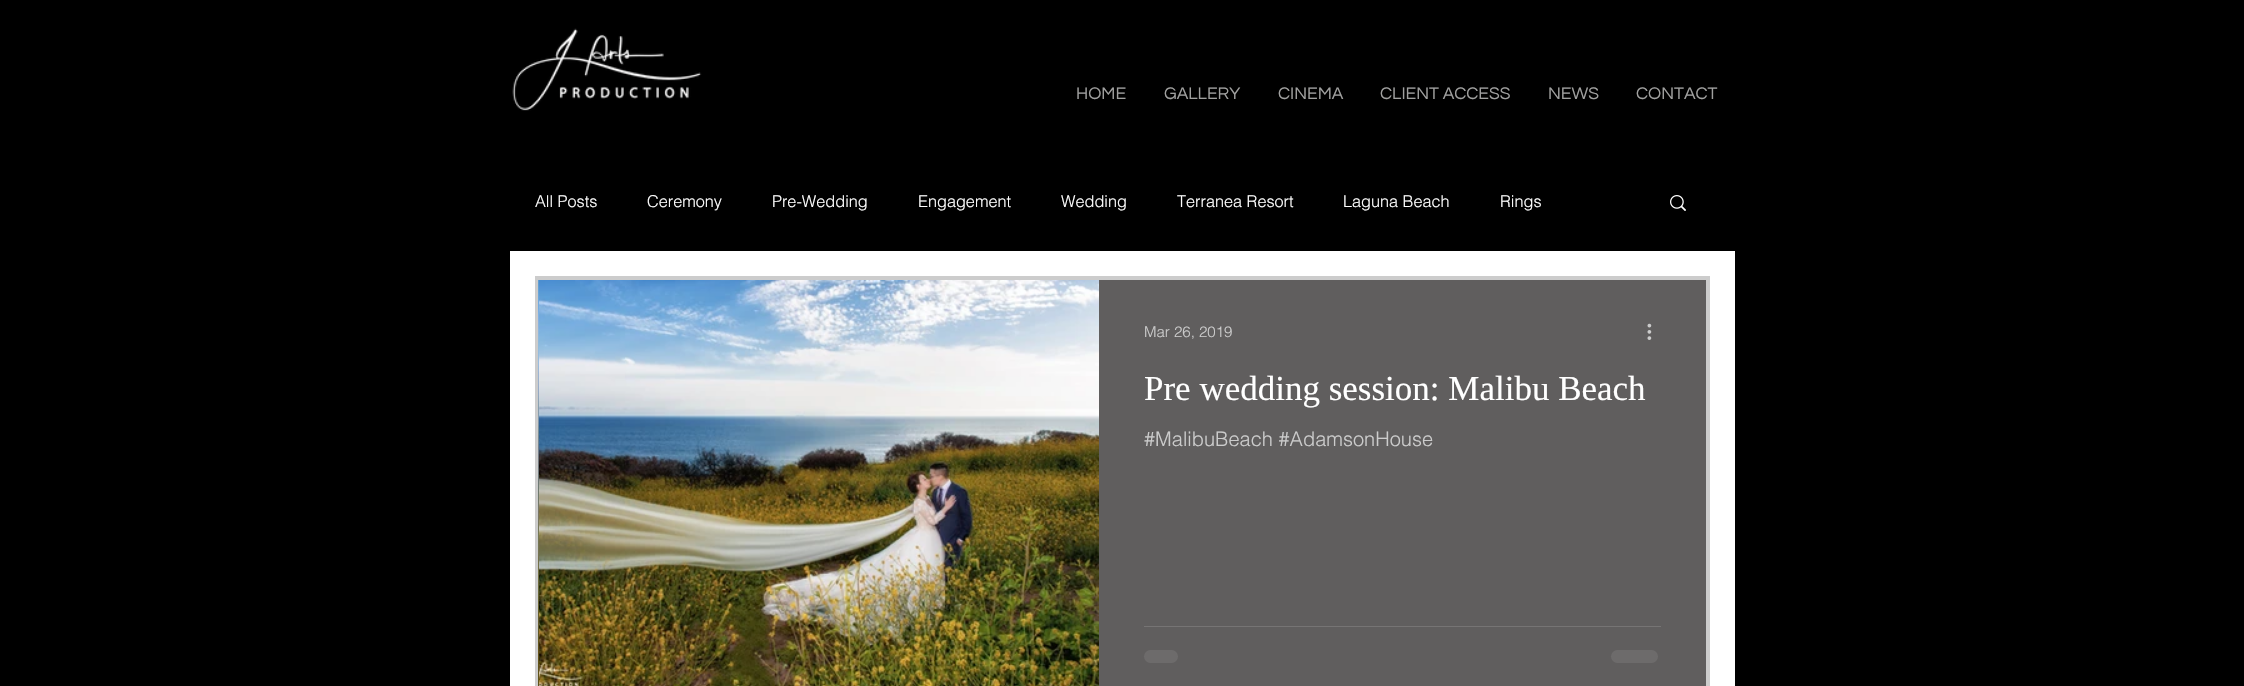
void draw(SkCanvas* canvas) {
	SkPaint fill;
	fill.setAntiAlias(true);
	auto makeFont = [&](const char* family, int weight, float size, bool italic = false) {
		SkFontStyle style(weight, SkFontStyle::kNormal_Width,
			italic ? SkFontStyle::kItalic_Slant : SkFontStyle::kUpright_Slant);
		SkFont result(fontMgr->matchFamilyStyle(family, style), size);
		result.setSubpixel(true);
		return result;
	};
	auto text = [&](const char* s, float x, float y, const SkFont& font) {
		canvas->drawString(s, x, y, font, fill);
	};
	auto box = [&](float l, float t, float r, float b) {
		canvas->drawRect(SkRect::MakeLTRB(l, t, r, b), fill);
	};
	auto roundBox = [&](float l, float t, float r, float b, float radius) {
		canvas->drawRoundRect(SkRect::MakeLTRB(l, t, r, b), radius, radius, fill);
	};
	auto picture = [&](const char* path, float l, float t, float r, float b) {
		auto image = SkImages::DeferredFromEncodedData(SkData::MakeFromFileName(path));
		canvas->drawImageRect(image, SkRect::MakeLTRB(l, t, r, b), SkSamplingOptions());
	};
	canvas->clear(0xFF000000);
	picture("image0.png", 512, 28, 702, 111);
	fill.setColor(0xFFFFFFFF);
	box(510, 251, 1735, 686);
	picture("image1.png", 1670, 195, 1686, 211);
	fill.setStyle(SkPaint::kStroke_Style);
	fill.setStrokeWidth(4);
	fill.setColor(0xFFCCCCCC);
	canvas->drawRect(SkRect::MakeLTRB(537, 278, 1708, 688), fill);
	picture("image2.png", 538, 280, 539, 686);
	picture("image3.png", 539, 280, 1099, 686);
	fill.setStyle(SkPaint::kFill_Style);
	fill.setColor(0xFF605E5E);
	box(1099, 280, 1706, 686);
	picture("image4.png", 1647, 323, 1652, 340);
	fill.setColor(0xFF767474);
	box(1144, 626, 1661, 627);
	fill.setColor(0xFF6D6B6B);
	roundBox(1144, 650, 1178, 663, 6.5f);
	roundBox(1611, 650, 1658, 663, 6.5f);
	auto font1 = makeFont("Questrial", 400, 17.5f);
	fill.setColor(0xFFA0A09F);
	text("HOME", 1076, 99, font1);
	text("GALLERY", 1164, 99, font1);
	text("CINEMA", 1278, 99, font1);
	text("CLIENT ACCESS", 1380, 99, font1);
	text("NEWS", 1548, 99, font1);
	text("CONTACT", 1636, 99, font1);
	auto font2 = makeFont("helvetica", 300, 16.25f);
	fill.setColor(0xFFFFFFFF);
	text("All Posts", 535, 207, font2);
	text("Ceremony", 647, 207, font2);
	text("Pre-Wedding", 772, 207, font2);
	text("Engagement", 918, 207, font2);
	text("Wedding", 1061, 207, font2);
	text("Terranea Resort", 1177, 207, font2);
	text("Laguna Beach", 1343, 207, font2);
	text("Rings", 1500, 207, font2);
	auto font3 = makeFont("helvetica", 300, 15);
	fill.setColor(0xFFCCCCCC);
	text("Mar 26, 2019", 1144, 337, font3);
	auto font4 = makeFont("Liberation Serif", 400, 35);
	fill.setColor(0xFFFFFFFF);
	text("Pre wedding session: Malibu Beach", 1144, 400, font4);
	auto font5 = makeFont("helvetica", 300, 20);
	fill.setColor(0xFFCCCCCC);
	text("#MalibuBeach #AdamsonHouse", 1144, 446, font5);
}
